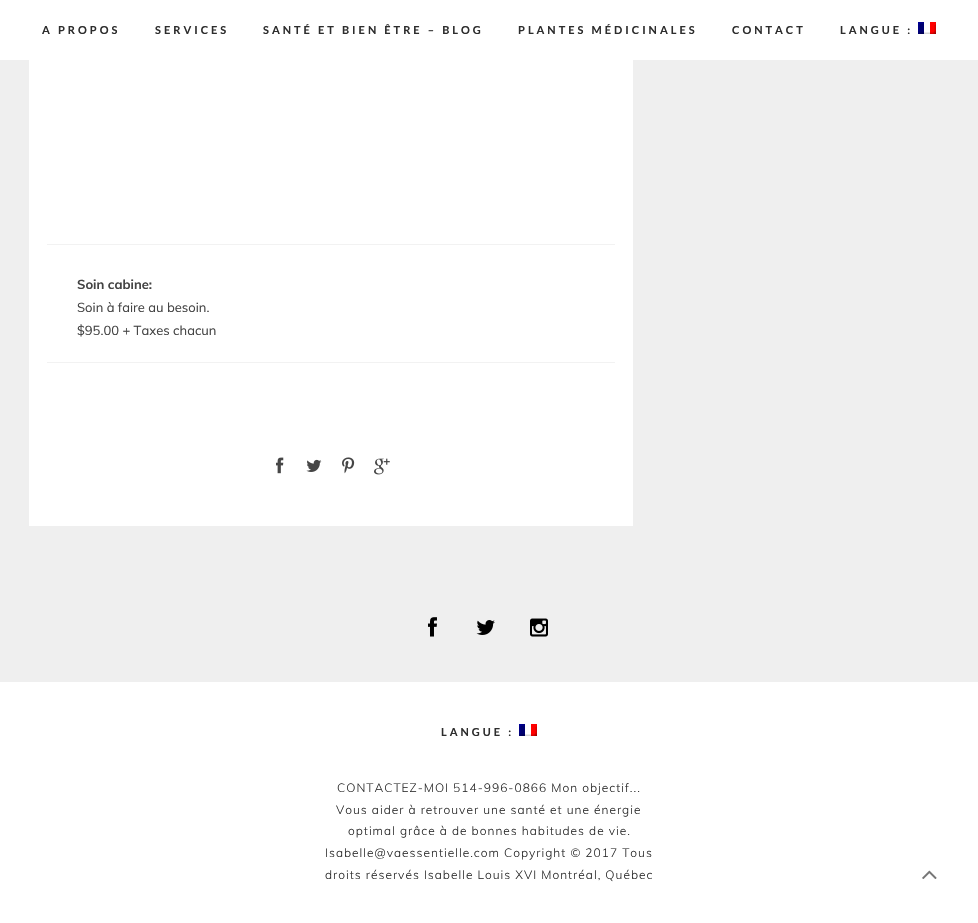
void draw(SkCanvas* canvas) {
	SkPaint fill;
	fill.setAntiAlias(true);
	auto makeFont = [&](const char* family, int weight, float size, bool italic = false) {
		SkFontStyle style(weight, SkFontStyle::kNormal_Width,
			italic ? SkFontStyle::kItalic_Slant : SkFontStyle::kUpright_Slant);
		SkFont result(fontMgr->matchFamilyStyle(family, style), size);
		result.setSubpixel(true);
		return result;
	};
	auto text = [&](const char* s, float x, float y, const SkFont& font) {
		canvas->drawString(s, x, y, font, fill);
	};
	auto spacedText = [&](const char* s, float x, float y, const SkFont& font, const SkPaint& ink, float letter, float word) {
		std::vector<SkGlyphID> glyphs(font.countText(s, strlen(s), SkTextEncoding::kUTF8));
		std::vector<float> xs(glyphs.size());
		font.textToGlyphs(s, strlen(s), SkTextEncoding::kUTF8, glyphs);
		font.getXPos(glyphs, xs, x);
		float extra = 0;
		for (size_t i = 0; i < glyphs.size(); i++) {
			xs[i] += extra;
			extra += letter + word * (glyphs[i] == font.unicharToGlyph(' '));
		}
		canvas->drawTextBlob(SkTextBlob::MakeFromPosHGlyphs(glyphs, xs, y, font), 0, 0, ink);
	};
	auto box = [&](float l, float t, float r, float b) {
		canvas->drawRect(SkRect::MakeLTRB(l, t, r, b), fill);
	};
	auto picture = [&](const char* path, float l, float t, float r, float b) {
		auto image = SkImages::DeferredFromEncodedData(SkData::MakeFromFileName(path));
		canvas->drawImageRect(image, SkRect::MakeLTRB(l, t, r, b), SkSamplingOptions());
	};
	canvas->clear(0xFFEFEFEF);
	fill.setColor(0xFFFFFFFF);
	box(0, 0, 978, 60);
	picture("image0.png", 918, 22, 936, 34);
	box(29, 60, 633, 526);
	fill.setColor(0xFFF2F2F2);
	box(47, 244, 615, 245);
	box(47, 362, 615, 363);
	picture("image1.png", 276, 457, 284, 474);
	picture("image2.png", 306, 459, 322, 472);
	picture("image3.png", 342, 457, 355, 474);
	picture("image4.png", 374, 458, 390, 475);
	picture("image5.png", 428, 617, 437, 637);
	picture("image6.png", 476, 620, 495, 635);
	picture("image7.png", 530, 618, 548, 637);
	fill.setColor(0xFFFFFFFF);
	box(0, 682, 978, 923);
	picture("image0.png", 519, 724, 537, 736);
	picture("image8.png", 922, 870, 937, 879);
	auto font1 = makeFont("Lato", 700, 11);
	fill.setColor(0xFF2D2D2D);
	spacedText("A PROPOS", 42, 34, font1, fill, 3, 0);
	spacedText("SERVICES", 155, 34, font1, fill, 3, 0);
	spacedText("SANTÉ ET BIEN ÊTRE – BLOG", 263, 34, font1, fill, 3, 0);
	spacedText("PLANTES MÉDICINALES", 518, 34, font1, fill, 3, 0);
	spacedText("CONTACT", 732, 34, font1, fill, 3, 0);
	spacedText("LANGUE :", 840, 34, font1, fill, 3, 0);
	auto font2 = makeFont("Muli", 700, 13);
	fill.setColor(0xFF444444);
	text("Soin cabine:", 77, 289, font2);
	auto font3 = makeFont("Muli", 400, 13);
	text("Soin à faire au besoin.", 77, 312, font3);
	text("$95.00 + Taxes chacun", 77, 335, font3);
	fill.setColor(0xFF2D2D2D);
	spacedText("LANGUE :", 441, 736, font1, fill, 3, 0);
	auto font4 = makeFont("Muli", 300, 12);
	spacedText("CONTACTEZ-MOI 514-996-0866 Mon objectif...", 337, 792, font4, fill, 1, 0);
	spacedText("Vous aider à retrouver une santé et une énergie", 336, 814, font4, fill, 1, 0);
	spacedText("optimal grâce à de bonnes habitudes de vie.", 348, 835, font4, fill, 1, 0);
	spacedText("Isabelle@vaessentielle.com Copyright © 2017 Tous", 325, 857, font4, fill, 1, 0);
	spacedText("droits réservés Isabelle Louis XVI Montréal, Québec", 325, 879, font4, fill, 1, 0);
}
